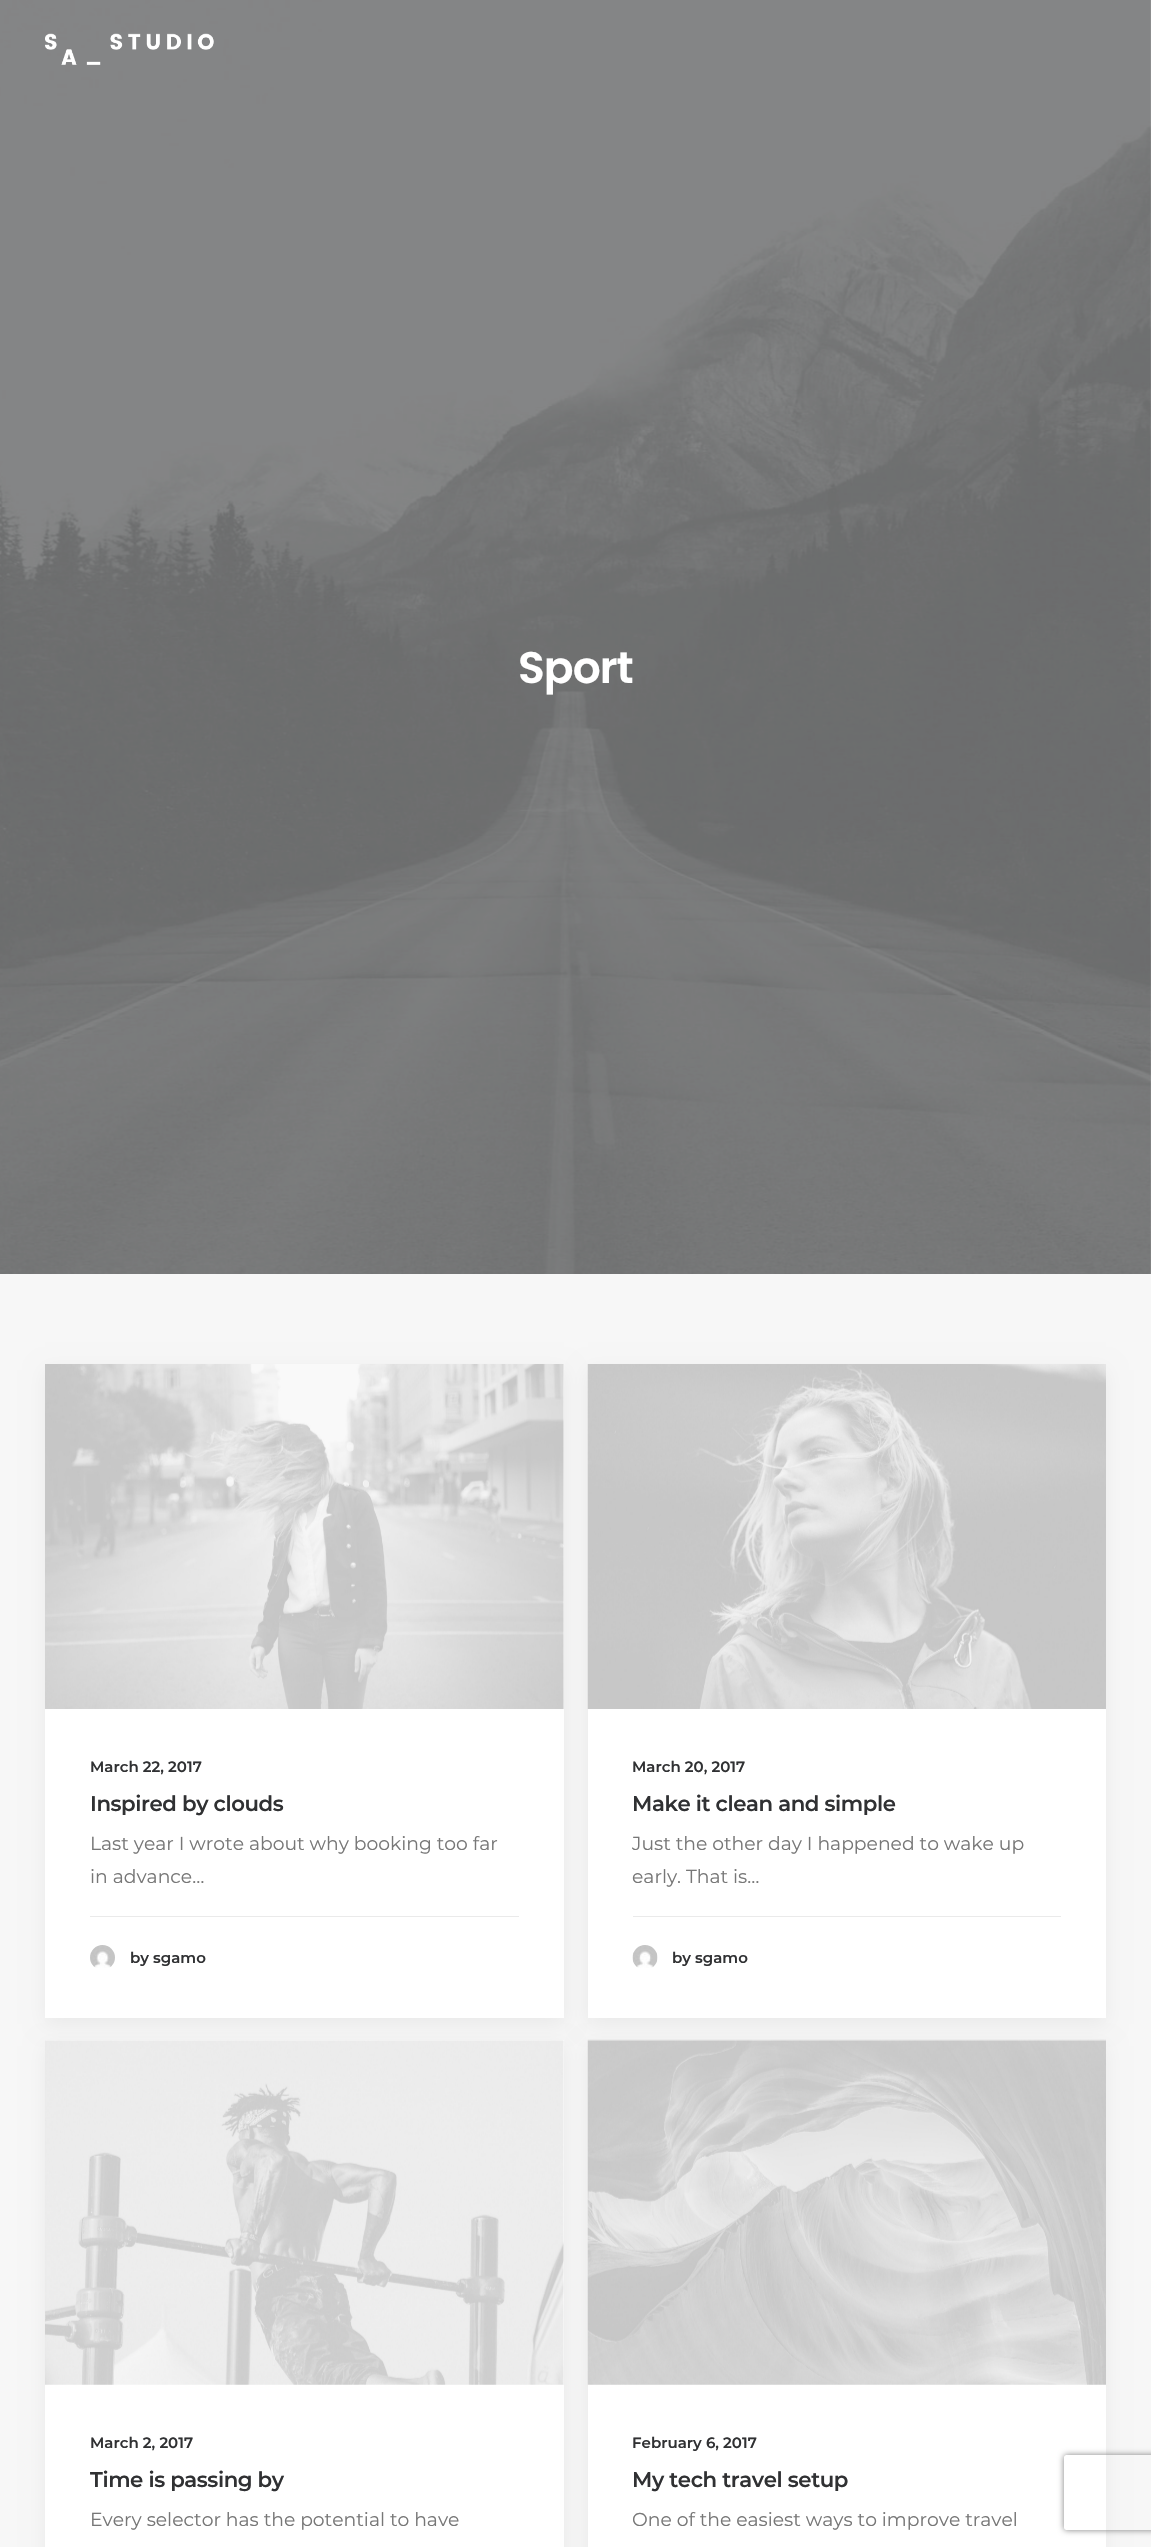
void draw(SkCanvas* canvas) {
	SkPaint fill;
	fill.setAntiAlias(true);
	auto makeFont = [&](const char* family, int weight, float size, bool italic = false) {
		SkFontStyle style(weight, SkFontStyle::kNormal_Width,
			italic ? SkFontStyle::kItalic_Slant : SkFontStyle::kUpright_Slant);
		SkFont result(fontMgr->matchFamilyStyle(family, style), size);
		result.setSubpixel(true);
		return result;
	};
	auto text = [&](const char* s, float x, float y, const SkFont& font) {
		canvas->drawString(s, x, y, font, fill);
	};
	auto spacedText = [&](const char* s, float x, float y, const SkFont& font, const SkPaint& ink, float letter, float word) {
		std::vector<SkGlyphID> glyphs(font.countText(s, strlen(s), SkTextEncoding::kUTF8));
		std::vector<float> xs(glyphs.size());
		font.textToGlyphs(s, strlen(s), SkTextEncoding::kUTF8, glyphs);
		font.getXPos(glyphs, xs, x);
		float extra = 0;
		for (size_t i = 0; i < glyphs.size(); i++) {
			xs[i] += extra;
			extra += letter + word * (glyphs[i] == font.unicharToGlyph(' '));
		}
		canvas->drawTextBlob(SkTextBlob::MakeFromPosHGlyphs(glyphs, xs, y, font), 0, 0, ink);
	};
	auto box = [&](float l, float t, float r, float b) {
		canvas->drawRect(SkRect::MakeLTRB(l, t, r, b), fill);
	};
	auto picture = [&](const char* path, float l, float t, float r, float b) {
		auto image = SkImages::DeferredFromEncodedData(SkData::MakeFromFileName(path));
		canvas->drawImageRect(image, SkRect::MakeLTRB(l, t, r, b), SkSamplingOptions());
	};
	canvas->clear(0xFFFFFFFF);
	picture("image1.png", 0, 0, 1151, 1274);
	picture("image0.png", 45, 33, 214, 65);
	fill.setColor(0xFFF7F7F7);
	box(0, 1274, 1151, 2547);
	fill.setColor(0x0D000000);
	fill.setMaskFilter(SkMaskFilter::MakeBlur(kNormal_SkBlurStyle, 9.5f));
	canvas->drawRect(SkRect::MakeLTRB(45, 1370, 564, 2024), fill);
	fill.setMaskFilter(nullptr);
	fill.setColor(0xFFFFFFFF);
	box(45, 1364, 564, 2018);
	fill.setColor(0x0D000000);
	fill.setMaskFilter(SkMaskFilter::MakeBlur(kNormal_SkBlurStyle, 9.5f));
	canvas->drawRect(SkRect::MakeLTRB(588, 1370, 1106, 2024), fill);
	fill.setMaskFilter(nullptr);
	picture("image2.png", 45, 1364, 564, 1709);
	fill.setColor(0xFFEAEAEA);
	box(90, 1916, 519, 1917);
	picture("image3.png", 90, 1945, 115, 1968);
	fill.setColor(0xFFFFFFFF);
	box(588, 1709, 1106, 2018);
	picture("image4.png", 587, 1364, 1106, 1709);
	fill.setColor(0xFFEAEAEA);
	box(633, 1916, 1061, 1917);
	picture("image5.png", 632, 1945, 658, 1968);
	fill.setColor(0x0D000000);
	fill.setMaskFilter(SkMaskFilter::MakeBlur(kNormal_SkBlurStyle, 9.5f));
	canvas->drawRect(SkRect::MakeLTRB(45, 2046, 564, 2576), fill);
	fill.setMaskFilter(nullptr);
	fill.setColor(0xFFFFFFFF);
	box(45, 2040, 564, 2547);
	fill.setColor(0x0D000000);
	fill.setMaskFilter(SkMaskFilter::MakeBlur(kNormal_SkBlurStyle, 9.5f));
	canvas->drawRect(SkRect::MakeLTRB(588, 2046, 1106, 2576), fill);
	fill.setMaskFilter(nullptr);
	picture("image6.png", 45, 2040, 564, 2385);
	fill.setColor(0xFFFFFFFF);
	box(588, 2040, 1106, 2547);
	picture("image7.png", 587, 2039, 1106, 2385);
	canvas->save();
	canvas->clipPath(SkPathBuilder(SkPathFillType::kEvenOdd).moveTo(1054, 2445).lineTo(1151, 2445).lineTo(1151, 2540).lineTo(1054, 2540).close().moveTo(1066.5f, 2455).lineTo(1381.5f, 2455).cubicTo(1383, 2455, 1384, 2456, 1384, 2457.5f).lineTo(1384, 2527.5f).cubicTo(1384, 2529, 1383, 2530, 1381.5f, 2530).lineTo(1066.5f, 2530).cubicTo(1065, 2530, 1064, 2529, 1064, 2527.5f).lineTo(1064, 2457.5f).cubicTo(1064, 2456, 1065, 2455, 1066.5f, 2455).close().detach(), true);
	fill.setColor(0xFF808080);
	fill.setMaskFilter(SkMaskFilter::MakeBlur(kNormal_SkBlurStyle, 3));
	canvas->drawRoundRect(SkRect::MakeLTRB(1064, 2455, 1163, 2530), 2.5f, 2.5f, fill);
	fill.setMaskFilter(nullptr);
	canvas->restore();
	auto font1 = makeFont("Poppins", 600, 44);
	fill.setColor(0xFFFFFFFF);
	spacedText("Sport", 518, 683, font1, fill, -1, 0);
	auto font2 = makeFont("Montserrat", 600, 15);
	fill.setColor(0xFF303133);
	text("March 22, 2017", 90, 1772, font2);
	auto font3 = makeFont("Montserrat", 600, 21.25f);
	spacedText("Inspired by clouds", 90, 1811, font3, fill, -0.4f, 0);
	auto font4 = makeFont("Montserrat", 400, 18.75f);
	fill.setColor(0xFF777777);
	text("Last year I wrote about why booking too far", 90, 1850, font4);
	text("in advance…", 90, 1883, font4);
	fill.setColor(0xFF303133);
	text("by sgamo", 130, 1963, font2);
	text("March 20, 2017", 632, 1772, font2);
	spacedText("Make it clean and simple", 632, 1811, font3, fill, -0.4f, 0);
	fill.setColor(0xFF777777);
	text("Just the other day I happened to wake up", 632, 1850, font4);
	text("early. That is…", 632, 1883, font4);
	fill.setColor(0xFF303133);
	text("by sgamo", 672, 1963, font2);
	text("March 2, 2017", 90, 2448, font2);
	spacedText("Time is passing by", 90, 2487, font3, fill, -0.4f, 0);
	fill.setColor(0xFF777777);
	text("Every selector has the potential to have", 90, 2526, font4);
	fill.setColor(0xFF303133);
	text("February 6, 2017", 632, 2448, font2);
	spacedText("My tech travel setup", 632, 2487, font3, fill, -0.4f, 0);
	fill.setColor(0xFF777777);
	text("One of the easiest ways to improve travel", 632, 2526, font4);
}
